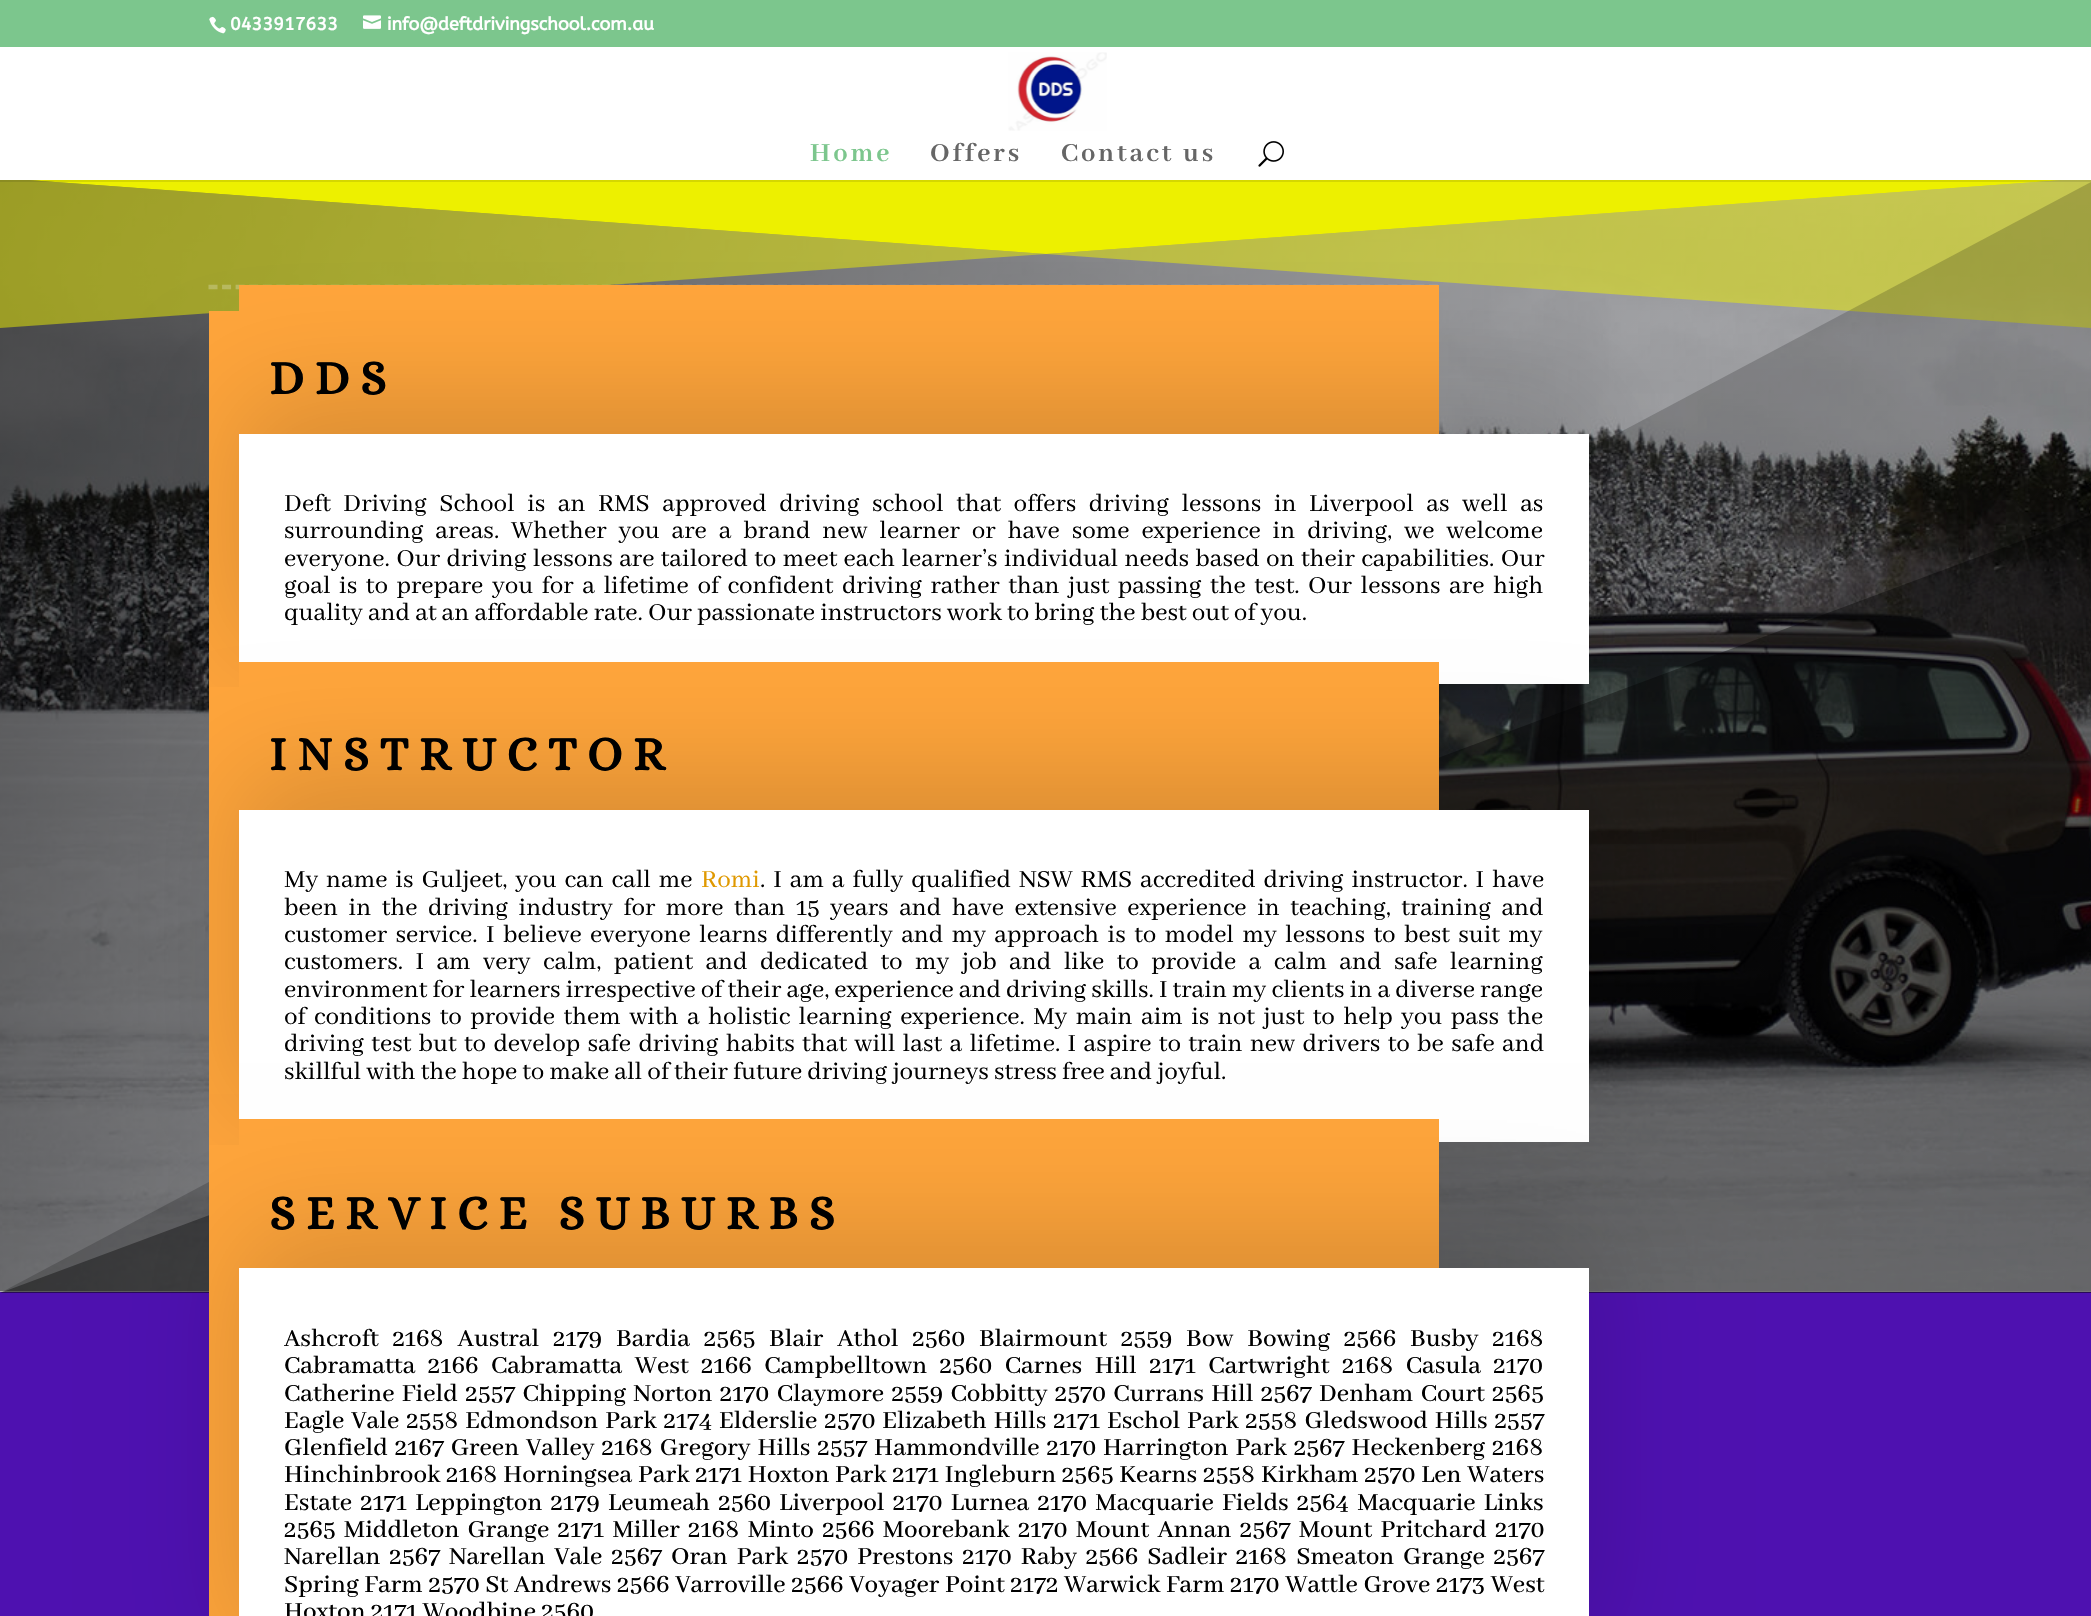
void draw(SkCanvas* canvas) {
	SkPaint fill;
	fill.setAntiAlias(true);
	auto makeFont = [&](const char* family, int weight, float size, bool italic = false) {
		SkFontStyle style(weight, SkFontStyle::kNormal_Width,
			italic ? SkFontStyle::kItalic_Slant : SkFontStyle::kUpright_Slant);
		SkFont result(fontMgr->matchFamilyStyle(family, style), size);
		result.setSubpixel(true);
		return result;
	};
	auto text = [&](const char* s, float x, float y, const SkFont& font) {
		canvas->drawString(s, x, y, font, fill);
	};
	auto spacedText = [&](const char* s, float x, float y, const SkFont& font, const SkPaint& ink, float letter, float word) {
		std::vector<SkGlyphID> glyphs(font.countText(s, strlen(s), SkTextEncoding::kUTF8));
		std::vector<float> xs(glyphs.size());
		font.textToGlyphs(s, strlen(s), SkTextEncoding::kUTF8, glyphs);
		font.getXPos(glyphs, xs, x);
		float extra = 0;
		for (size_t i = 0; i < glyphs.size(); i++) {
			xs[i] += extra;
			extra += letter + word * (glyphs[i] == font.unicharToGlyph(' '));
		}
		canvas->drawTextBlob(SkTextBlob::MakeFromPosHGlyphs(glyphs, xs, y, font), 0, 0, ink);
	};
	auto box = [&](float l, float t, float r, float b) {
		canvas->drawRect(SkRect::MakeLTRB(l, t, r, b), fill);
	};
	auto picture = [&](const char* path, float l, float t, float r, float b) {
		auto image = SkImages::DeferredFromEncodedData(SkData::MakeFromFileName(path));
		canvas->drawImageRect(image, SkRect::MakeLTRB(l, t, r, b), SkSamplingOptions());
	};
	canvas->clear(0xFFFFFFFF);
	fill.setColor(0xFF7CC68D);
	box(0, 0, 2091, 47);
	picture("image0.png", 209, 16, 226, 34);
	picture("image1.png", 363, 15, 381, 29);
	picture("image4.png", 0, 180, 2091, 1292);
	fill.setColor(0x80EDF000);
	canvas->drawPath(SkPathBuilder().moveTo(2091, 178).lineTo(1046, 254).lineTo(0, 178).lineTo(0, 328).lineTo(1046, 254).lineTo(2091, 328).close().detach(), fill);
	fill.setColor(0xFFEDF000);
	canvas->drawPath(SkPathBuilder().moveTo(2091, 178).lineTo(0, 178).lineTo(1046, 254).close().detach(), fill);
	fill.setColor(0x1A000000);
	box(0, 180, 2091, 182);
	fill.setColor(0xFFFFFFFF);
	box(0, 178, 2091, 180);
	picture("image2.png", 1008, 52, 1107, 131);
	picture("image3.png", 1258, 141, 1284, 167);
	fill.setColor(0xFF4E11B0);
	box(0, 1292, 2091, 1616);
	fill.setColor(0x30000000);
	canvas->drawPath(SkPathBuilder().moveTo(2091, 182).lineTo(2091, 1293).lineTo(0, 1293).close().detach(), fill);
	fill.setColor(0x61000000);
	canvas->drawPath(SkPathBuilder().moveTo(2091, 515).lineTo(2091, 1293).lineTo(0, 1293).close().detach(), fill);
	fill.setStyle(SkPaint::kStroke_Style);
	fill.setStrokeWidth(4.5f);
	fill.setColor(0x3DFFFFFF);
	fill.setPathEffect(SkDashPathEffect::Make({{9, 4.56f}}, 0));
	canvas->drawPath(SkPathBuilder().moveTo(208.5f, 287).lineTo(1438.5f, 287).detach(), fill);
	fill.setPathEffect(nullptr);
	fill.setStyle(SkPaint::kFill_Style);
	fill.setColor(0xFFFFA53B);
	box(209, 311, 239, 687);
	box(239, 285, 1439, 434);
	fill.setColor(0x26000000);
	fill.setMaskFilter(SkMaskFilter::MakeBlur(kNormal_SkBlurStyle, 56));
	canvas->drawRect(SkRect::MakeLTRB(239, 396, 1589, 647), fill);
	fill.setMaskFilter(nullptr);
	fill.setColor(0xFFFFFFFF);
	box(239, 434, 1589, 684);
	fill.setColor(0xFFFFA53B);
	box(209, 687, 239, 1145);
	box(239, 662, 1439, 810);
	fill.setColor(0x26000000);
	fill.setMaskFilter(SkMaskFilter::MakeBlur(kNormal_SkBlurStyle, 56));
	canvas->drawRect(SkRect::MakeLTRB(239, 773, 1589, 1104), fill);
	fill.setMaskFilter(nullptr);
	fill.setColor(0xFFFFFFFF);
	box(239, 810, 1589, 1142);
	fill.setColor(0xFFFFA53B);
	box(209, 1145, 239, 1616);
	box(239, 1119, 1439, 1268);
	fill.setColor(0x26000000);
	fill.setMaskFilter(SkMaskFilter::MakeBlur(kNormal_SkBlurStyle, 56));
	canvas->drawRect(SkRect::MakeLTRB(239, 1230, 1589, 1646), fill);
	fill.setMaskFilter(nullptr);
	fill.setColor(0xFFFFFFFF);
	box(239, 1268, 1589, 1616);
	auto font1 = makeFont("ABeeZee", 700, 18);
	text("0433917633", 230, 30, font1);
	text("info@deftdrivingschool.com.au", 387, 30, font1);
	auto font2 = makeFont("Abhaya Libre", 700, 28.5f);
	fill.setColor(0xFF7CC68D);
	spacedText("Home", 810, 161, font2, fill, 3, 0);
	fill.setColor(0xFF666666);
	spacedText("Offers", 930, 161, font2, fill, 3, 0);
	spacedText("Contact us", 1061, 161, font2, fill, 3, 0);
	auto font3 = makeFont("Alice", 700, 48);
	fill.setColor(0xFF000000);
	spacedText("DDS", 269, 394, font3, fill, 10.5f, 0);
	auto font4 = makeFont("Abhaya Libre", 400, 27);
	spacedText("Deft Driving School is an RMS approved driving school that offers driving lessons in Liverpool as well as", 284, 511, font4, fill, 0, 7.4f);
	spacedText("surrounding areas. Whether you are a brand new learner or have some experience in driving, we welcome", 284, 538, font4, fill, 0, 6.75f);
	spacedText("everyone. Our driving lessons are tailored to meet each learner’s individual needs based on their capabilities. Our", 284, 566, font4, fill, 0, 1.2f);
	spacedText("goal is to prepare you for a lifetime of confident driving rather than just passing the test. Our lessons are high", 284, 593, font4, fill, 0, 3.4f);
	text("quality and at an affordable rate. Our passionate instructors work to bring the best out of you.", 284, 620, font4);
	spacedText("INSTRUCTOR", 269, 770, font3, fill, 10.5f, 0);
	spacedText("My name is Guljeet, you can call me", 284, 887, font4, fill, 0, 2.75f);
	fill.setColor(0xFFE09900);
	text("Romi", 701, 887, font4);
	fill.setColor(0xFF000000);
	spacedText(". I am a fully qualified NSW RMS accredited driving instructor. I have", 760, 887, font4, fill, 0, 2.75f);
	spacedText("been in the driving industry for more than 15 years and have extensive experience in teaching, training and", 284, 915, font4, fill, 0, 5.4f);
	spacedText("customer service. I believe everyone learns differently and my approach is to model my lessons to best suit my", 284, 942, font4, fill, 0, 3.25f);
	spacedText("customers. I am very calm, patient and dedicated to my job and like to provide a calm and safe learning", 284, 969, font4, fill, 0, 7.25f);
	text("environment for learners irrespective of their age, experience and driving skills. I train my clients in a diverse range", 284, 997, font4);
	spacedText("of conditions to provide them with a holistic learning experience. My main aim is not just to help you pass the", 284, 1024, font4, fill, 0, 3.25f);
	spacedText("driving test but to develop safe driving habits that will last a lifetime. I aspire to train new drivers to be safe and", 284, 1051, font4, fill, 0, 2.2f);
	text("skillful with the hope to make all of their future driving journeys stress free and joyful.", 284, 1079, font4);
	spacedText("SERVICE SUBURBS", 269, 1229, font3, fill, 10.5f, 0);
	auto font5 = makeFont("Abhaya Libre Medium", 500, 27);
	spacedText("Ashcroft 2168 Austral 2179 Bardia 2565 Blair Athol 2560 Blairmount 2559 Bow Bowing 2566 Busby 2168", 284, 1346, font5, fill, 0, 8.6f);
	spacedText("Cabramatta 2166 Cabramatta West 2166 Campbelltown 2560 Carnes Hill 2171 Cartwright 2168 Casula 2170", 284, 1373, font5, fill, 0, 7.25f);
	spacedText("Catherine Field 2557 Chipping Norton 2170 Claymore 2559 Cobbitty 2570 Currans Hill 2567 Denham Court 2565", 284, 1401, font5, fill, 0, 2.2f);
	spacedText("Eagle Vale 2558 Edmondson Park 2174 Elderslie 2570 Elizabeth Hills 2171 Eschol Park 2558 Gledswood Hills 2557", 284, 1428, font5, fill, 0, 1.7f);
	spacedText("Glenfield 2167 Green Valley 2168 Gregory Hills 2557 Hammondville 2170 Harrington Park 2567 Heckenberg 2168", 284, 1455, font5, fill, 0, 1.75f);
	spacedText("Hinchinbrook 2168 Horningsea Park 2171 Hoxton Park 2171 Ingleburn 2565 Kearns 2558 Kirkham 2570 Len Waters", 284, 1482, font5, fill, 0, 0.6f);
	spacedText("Estate 2171 Leppington 2179 Leumeah 2560 Liverpool 2170 Lurnea 2170 Macquarie Fields 2564 Macquarie Links", 284, 1510, font5, fill, 0, 3.1f);
	spacedText("2565 Middleton Grange 2171 Miller 2168 Minto 2566 Moorebank 2170 Mount Annan 2567 Mount Pritchard 2170", 284, 1537, font5, fill, 0, 3.1f);
	spacedText("Narellan 2567 Narellan Vale 2567 Oran Park 2570 Prestons 2170 Raby 2566 Sadleir 2168 Smeaton Grange 2567", 284, 1564, font5, fill, 0, 3.75f);
	spacedText("Spring Farm 2570 St Andrews 2566 Varroville 2566 Voyager Point 2172 Warwick Farm 2170 Wattle Grove 2173 West", 284, 1592, font5, fill, 0, 0.5f);
	text("Hoxton 2171 Woodbine 2560", 284, 1619, font5);
}
